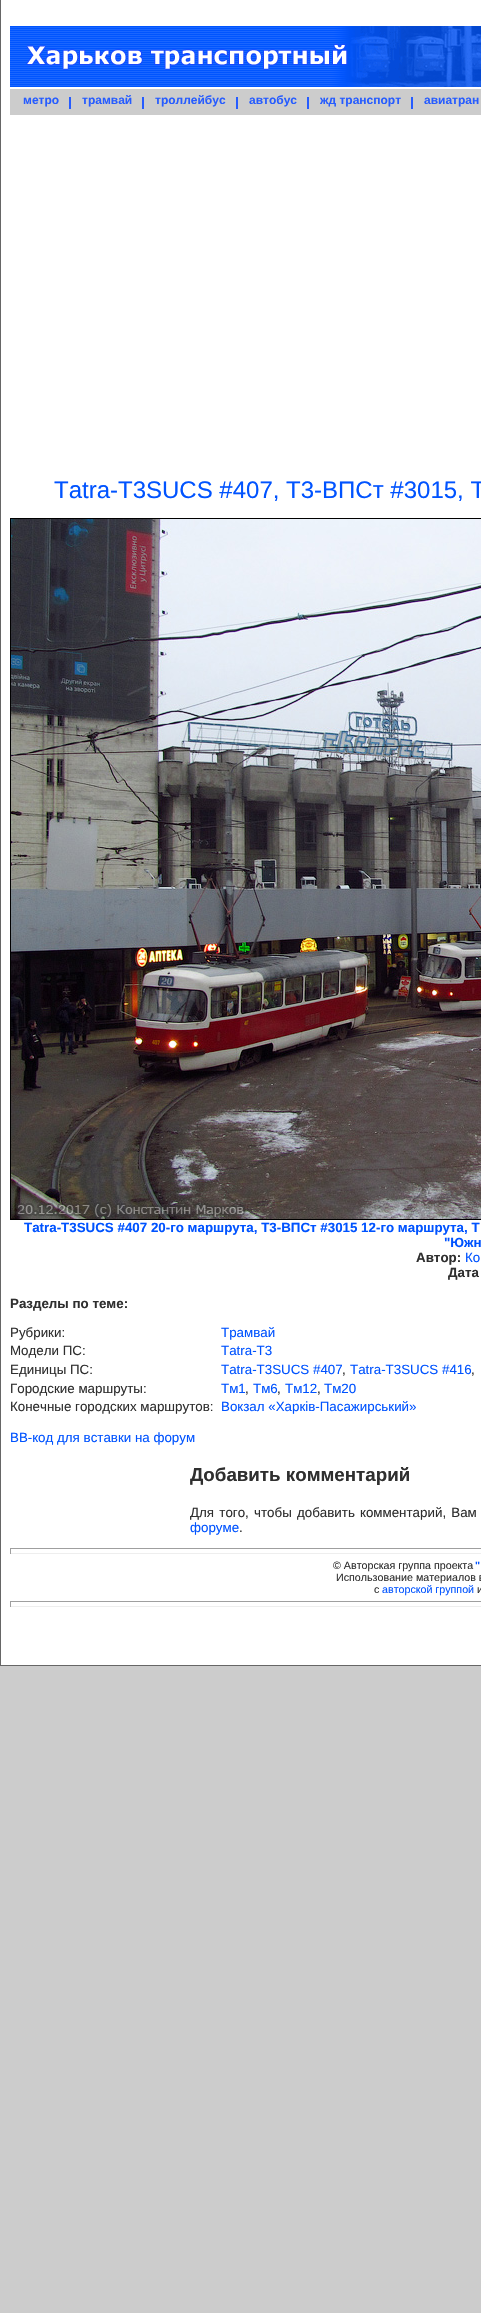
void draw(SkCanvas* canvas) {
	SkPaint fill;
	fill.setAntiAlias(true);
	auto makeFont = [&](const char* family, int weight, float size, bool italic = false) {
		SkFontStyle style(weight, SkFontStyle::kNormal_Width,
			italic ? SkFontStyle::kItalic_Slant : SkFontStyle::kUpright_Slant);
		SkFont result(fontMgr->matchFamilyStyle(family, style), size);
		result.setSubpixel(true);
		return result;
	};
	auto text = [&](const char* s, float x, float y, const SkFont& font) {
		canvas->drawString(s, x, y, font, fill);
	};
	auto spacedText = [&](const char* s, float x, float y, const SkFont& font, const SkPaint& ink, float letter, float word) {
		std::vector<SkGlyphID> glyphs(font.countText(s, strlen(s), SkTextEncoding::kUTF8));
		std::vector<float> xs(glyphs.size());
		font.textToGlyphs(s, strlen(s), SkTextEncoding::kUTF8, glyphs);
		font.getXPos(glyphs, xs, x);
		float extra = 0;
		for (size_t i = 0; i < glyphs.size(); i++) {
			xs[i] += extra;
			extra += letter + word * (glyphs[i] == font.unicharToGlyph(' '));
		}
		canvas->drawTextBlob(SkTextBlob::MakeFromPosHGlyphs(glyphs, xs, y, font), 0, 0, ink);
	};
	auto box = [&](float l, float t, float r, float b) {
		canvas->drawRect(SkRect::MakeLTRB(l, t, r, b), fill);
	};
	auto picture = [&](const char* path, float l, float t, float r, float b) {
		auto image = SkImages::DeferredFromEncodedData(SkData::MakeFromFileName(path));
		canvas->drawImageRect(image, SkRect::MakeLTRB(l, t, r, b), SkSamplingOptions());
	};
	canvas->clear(0xFFCCCCCC);
	fill.setColor(0xFFFFFFFF);
	box(1, 0, 481, 1665);
	fill.setColor(0xFF666666);
	box(0, 1665, 481, 1666);
	box(0, 0, 1, 1666);
	fill.setColor(0xFF0055FF);
	box(10, 26, 26, 87);
	picture("image0.png", 10, 27, 26, 86);
	picture("image1.png", 26, 26, 355, 87);
	picture("image2.png", 355, 26, 481, 87);
	fill.setColor(0xFFCCCCCC);
	box(10, 89, 481, 115);
	fill.setColor(0xFF265CFF);
	box(69, 97, 71, 109);
	box(142, 97, 144, 109);
	box(236, 97, 238, 109);
	box(307, 97, 309, 109);
	box(411, 97, 413, 109);
	fill.setStyle(SkPaint::kStroke_Style);
	fill.setStrokeWidth(1);
	fill.setColor(0xFF000000);
	canvas->drawRect(SkRect::MakeLTRB(10.5f, 518.5f, 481.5f, 1219.5f), fill);
	picture("image3.png", 11, 519, 481, 1219);
	fill.setStyle(SkPaint::kFill_Style);
	fill.setColor(0xFF9F9F9F);
	box(10, 1548, 481, 1549);
	fill.setColor(0xFFEEEEEE);
	box(10, 1553, 481, 1554);
	fill.setColor(0xFF9F9F9F);
	box(10, 1548, 11, 1554);
	box(10, 1601, 481, 1602);
	fill.setColor(0xFFEEEEEE);
	box(10, 1606, 481, 1607);
	fill.setColor(0xFF9F9F9F);
	box(10, 1601, 11, 1607);
	auto font1 = makeFont("Liberation Sans", 700, 12);
	fill.setColor(0xFF265CFF);
	text("метро", 23, 104, font1);
	text("трамвай", 82, 104, font1);
	text("троллейбус", 155, 104, font1);
	text("автобус", 249, 104, font1);
	text("жд транспорт", 320, 104, font1);
	text("авиатран", 424, 104, font1);
	auto font2 = makeFont("Liberation Sans", 400, 24);
	fill.setColor(0xFF0053FF);
	text("Tatra-T3SUCS #407, T3-ВПСт #3015, T", 54, 498, font2);
	auto font3 = makeFont("Liberation Sans", 700, 13.35f);
	text("Tatra-T3SUCS #407 20-го маршрута, T3-ВПСт #3015 12-го маршрута, T", 24, 1232, font3);
	text("\"Южн", 444, 1247, font3);
	fill.setColor(0xFF2F2F2F);
	text("Автор:", 416, 1262, font3);
	auto font4 = makeFont("Liberation Sans", 400, 13.35f);
	fill.setColor(0xFF0053FF);
	text("Ко", 465, 1262, font4);
	fill.setColor(0xFF2F2F2F);
	text("Дата", 448, 1277, font3);
	text("Разделы по теме:", 10, 1308, font3);
	text("Рубрики:", 10, 1337, font4);
	fill.setColor(0xFF0053FF);
	text("Трамвай", 221, 1337, font4);
	fill.setColor(0xFF2F2F2F);
	text("Модели ПС:", 10, 1355, font4);
	fill.setColor(0xFF0053FF);
	text("Tatra-T3", 221, 1355, font4);
	fill.setColor(0xFF2F2F2F);
	text("Единицы ПС:", 10, 1374, font4);
	fill.setColor(0xFF0053FF);
	text("Tatra-T3SUCS #407", 221, 1374, font4);
	fill.setColor(0xFF2F2F2F);
	text(",", 342, 1374, font4);
	fill.setColor(0xFF0053FF);
	text("Tatra-T3SUCS #416", 350, 1374, font4);
	fill.setColor(0xFF2F2F2F);
	text(",", 471, 1374, font4);
	text("Городские маршруты:", 10, 1393, font4);
	fill.setColor(0xFF0053FF);
	text("Тм1", 221, 1393, font4);
	fill.setColor(0xFF2F2F2F);
	text(",", 245, 1393, font4);
	fill.setColor(0xFF0053FF);
	text("Тм6", 253, 1393, font4);
	fill.setColor(0xFF2F2F2F);
	text(",", 277, 1393, font4);
	fill.setColor(0xFF0053FF);
	text("Тм12", 285, 1393, font4);
	fill.setColor(0xFF2F2F2F);
	text(",", 317, 1393, font4);
	fill.setColor(0xFF0053FF);
	text("Тм20", 324, 1393, font4);
	fill.setColor(0xFF2F2F2F);
	text("Конечные городских маршрутов:", 10, 1411, font4);
	fill.setColor(0xFF0053FF);
	text("Вокзал «Харків-Пасажирський»", 221, 1411, font4);
	text("BB-код для вставки на форум", 10, 1442, font4);
	auto font5 = makeFont("Liberation Sans", 700, 18.75f);
	fill.setColor(0xFF2F2F2F);
	text("Добавить комментарий", 190, 1481, font5);
	spacedText("Для того, чтобы добавить комментарий, Вам", 190, 1517, font4, fill, 0, 1.5f);
	fill.setColor(0xFF0053FF);
	text("форуме", 190, 1532, font4);
	fill.setColor(0xFF2F2F2F);
	text(".", 239, 1532, font4);
	auto font6 = makeFont("Liberation Sans", 400, 10.7f);
	text("© Авторская группа проекта", 333, 1569, font6);
	auto font7 = makeFont("Liberation Sans", 700, 10.7f);
	fill.setColor(0xFF0053FF);
	text("\"", 475, 1569, font7);
	fill.setColor(0xFF2F2F2F);
	text("Использование материалов в", 336, 1581, font6);
	text("с", 374, 1593, font6);
	fill.setColor(0xFF0053FF);
	text("авторской группой", 382, 1593, font6);
	fill.setColor(0xFF2F2F2F);
	text("и", 477, 1593, font6);
}
